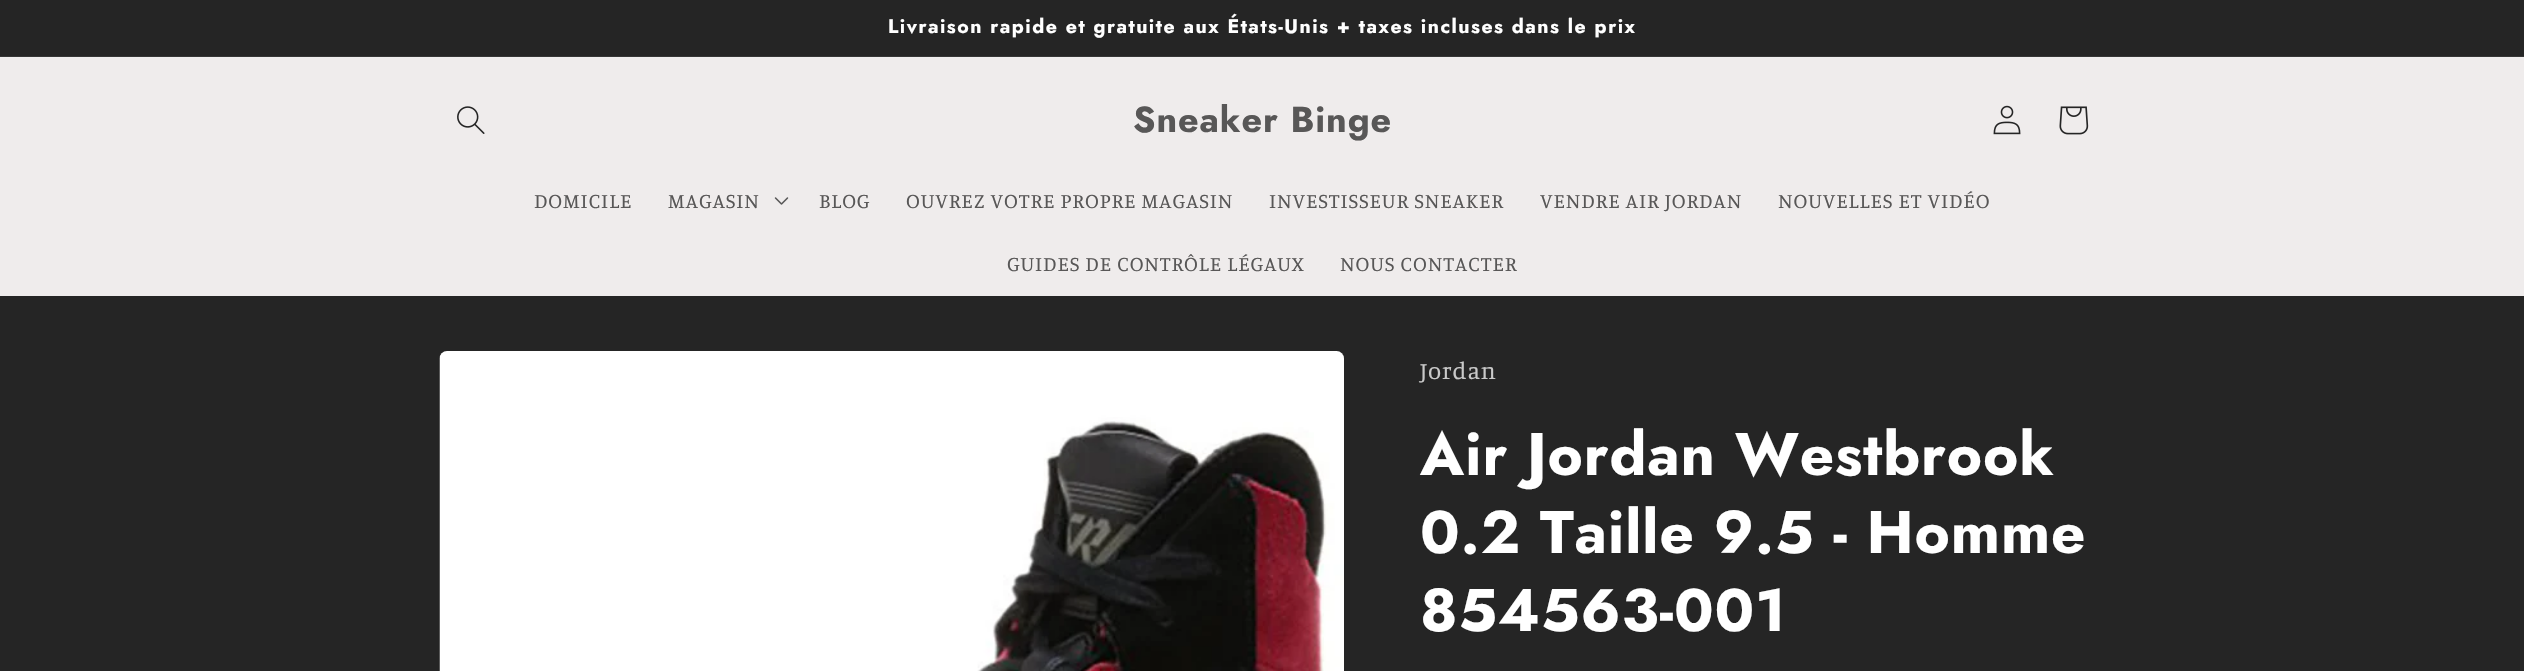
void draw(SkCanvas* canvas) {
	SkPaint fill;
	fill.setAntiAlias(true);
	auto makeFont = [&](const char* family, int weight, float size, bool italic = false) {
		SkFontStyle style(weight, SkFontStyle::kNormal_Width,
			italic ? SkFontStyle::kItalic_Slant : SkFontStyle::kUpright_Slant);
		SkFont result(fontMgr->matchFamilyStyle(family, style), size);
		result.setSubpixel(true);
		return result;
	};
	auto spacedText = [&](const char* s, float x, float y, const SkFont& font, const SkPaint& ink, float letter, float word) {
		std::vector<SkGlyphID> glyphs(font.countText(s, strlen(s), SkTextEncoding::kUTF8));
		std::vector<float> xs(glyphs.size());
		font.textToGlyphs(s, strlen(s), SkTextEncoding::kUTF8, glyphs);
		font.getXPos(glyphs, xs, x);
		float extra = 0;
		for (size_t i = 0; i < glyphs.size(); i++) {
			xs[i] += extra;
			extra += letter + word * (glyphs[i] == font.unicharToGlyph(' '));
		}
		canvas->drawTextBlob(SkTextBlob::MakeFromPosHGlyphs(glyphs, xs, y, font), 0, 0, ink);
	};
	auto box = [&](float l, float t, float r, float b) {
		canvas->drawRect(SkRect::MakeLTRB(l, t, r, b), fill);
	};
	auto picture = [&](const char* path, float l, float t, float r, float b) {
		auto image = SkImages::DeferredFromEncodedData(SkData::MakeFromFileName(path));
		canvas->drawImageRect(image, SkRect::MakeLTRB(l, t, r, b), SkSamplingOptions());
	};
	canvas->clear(0xFF252525);
	fill.setColor(0xFF363636);
	box(0, 56, 2524, 57);
	fill.setColor(0xFFEFECEC);
	box(0, 58, 2524, 296);
	fill.setColor(0xFFF0EEEE);
	box(0, 57, 2524, 58);
	picture("image0.png", 457, 106, 485, 134);
	picture("image1.png", 1993, 105, 2021, 135);
	picture("image2.png", 2059, 106, 2089, 135);
	picture("image3.png", 774, 197, 789, 205);
	picture("image4.png", 439, 351, 1344, 671);
	auto font1 = makeFont("Jost", 700, 19.5f);
	fill.setColor(0xFFFFFFFF);
	spacedText("Livraison rapide et gratuite aux États-Unis + taxes incluses dans le prix", 888, 33, font1, fill, 1.5f, 0);
	auto font2 = makeFont("Jost", 700, 36);
	fill.setColor(0xFF585757);
	spacedText("Sneaker Binge", 1133, 132, font2, fill, 0.9f, 0);
	auto font3 = makeFont("Manuale", 400, 21);
	spacedText("DOMICILE", 534, 208, font3, fill, 0.9f, 0);
	spacedText("MAGASIN", 668, 208, font3, fill, 0.9f, 0);
	spacedText("BLOG", 819, 208, font3, fill, 0.9f, 0);
	spacedText("OUVREZ VOTRE PROPRE MAGASIN", 906, 208, font3, fill, 0.9f, 0);
	spacedText("INVESTISSEUR SNEAKER", 1269, 208, font3, fill, 0.9f, 0);
	spacedText("VENDRE AIR JORDAN", 1540, 208, font3, fill, 0.9f, 0);
	spacedText("NOUVELLES ET VIDÉO", 1778, 208, font3, fill, 0.9f, 0);
	spacedText("GUIDES DE CONTRÔLE LÉGAUX", 1007, 271, font3, fill, 0.9f, 0);
	spacedText("NOUS CONTACTER", 1340, 271, font3, fill, 0.9f, 0);
	auto font4 = makeFont("Manuale", 400, 24);
	fill.setColor(0xFFC9C9C9);
	spacedText("Jordan", 1420, 379, font4, fill, 0.9f, 0);
	auto font5 = makeFont("Jost", 700, 60);
	fill.setColor(0xFFFFFFFF);
	spacedText("Air Jordan Westbrook", 1420, 475, font5, fill, 0.9f, 0);
	spacedText("0.2 Taille 9.5 - Homme", 1420, 553, font5, fill, 0.9f, 0);
	spacedText("854563-001", 1420, 631, font5, fill, 0.9f, 0);
}
